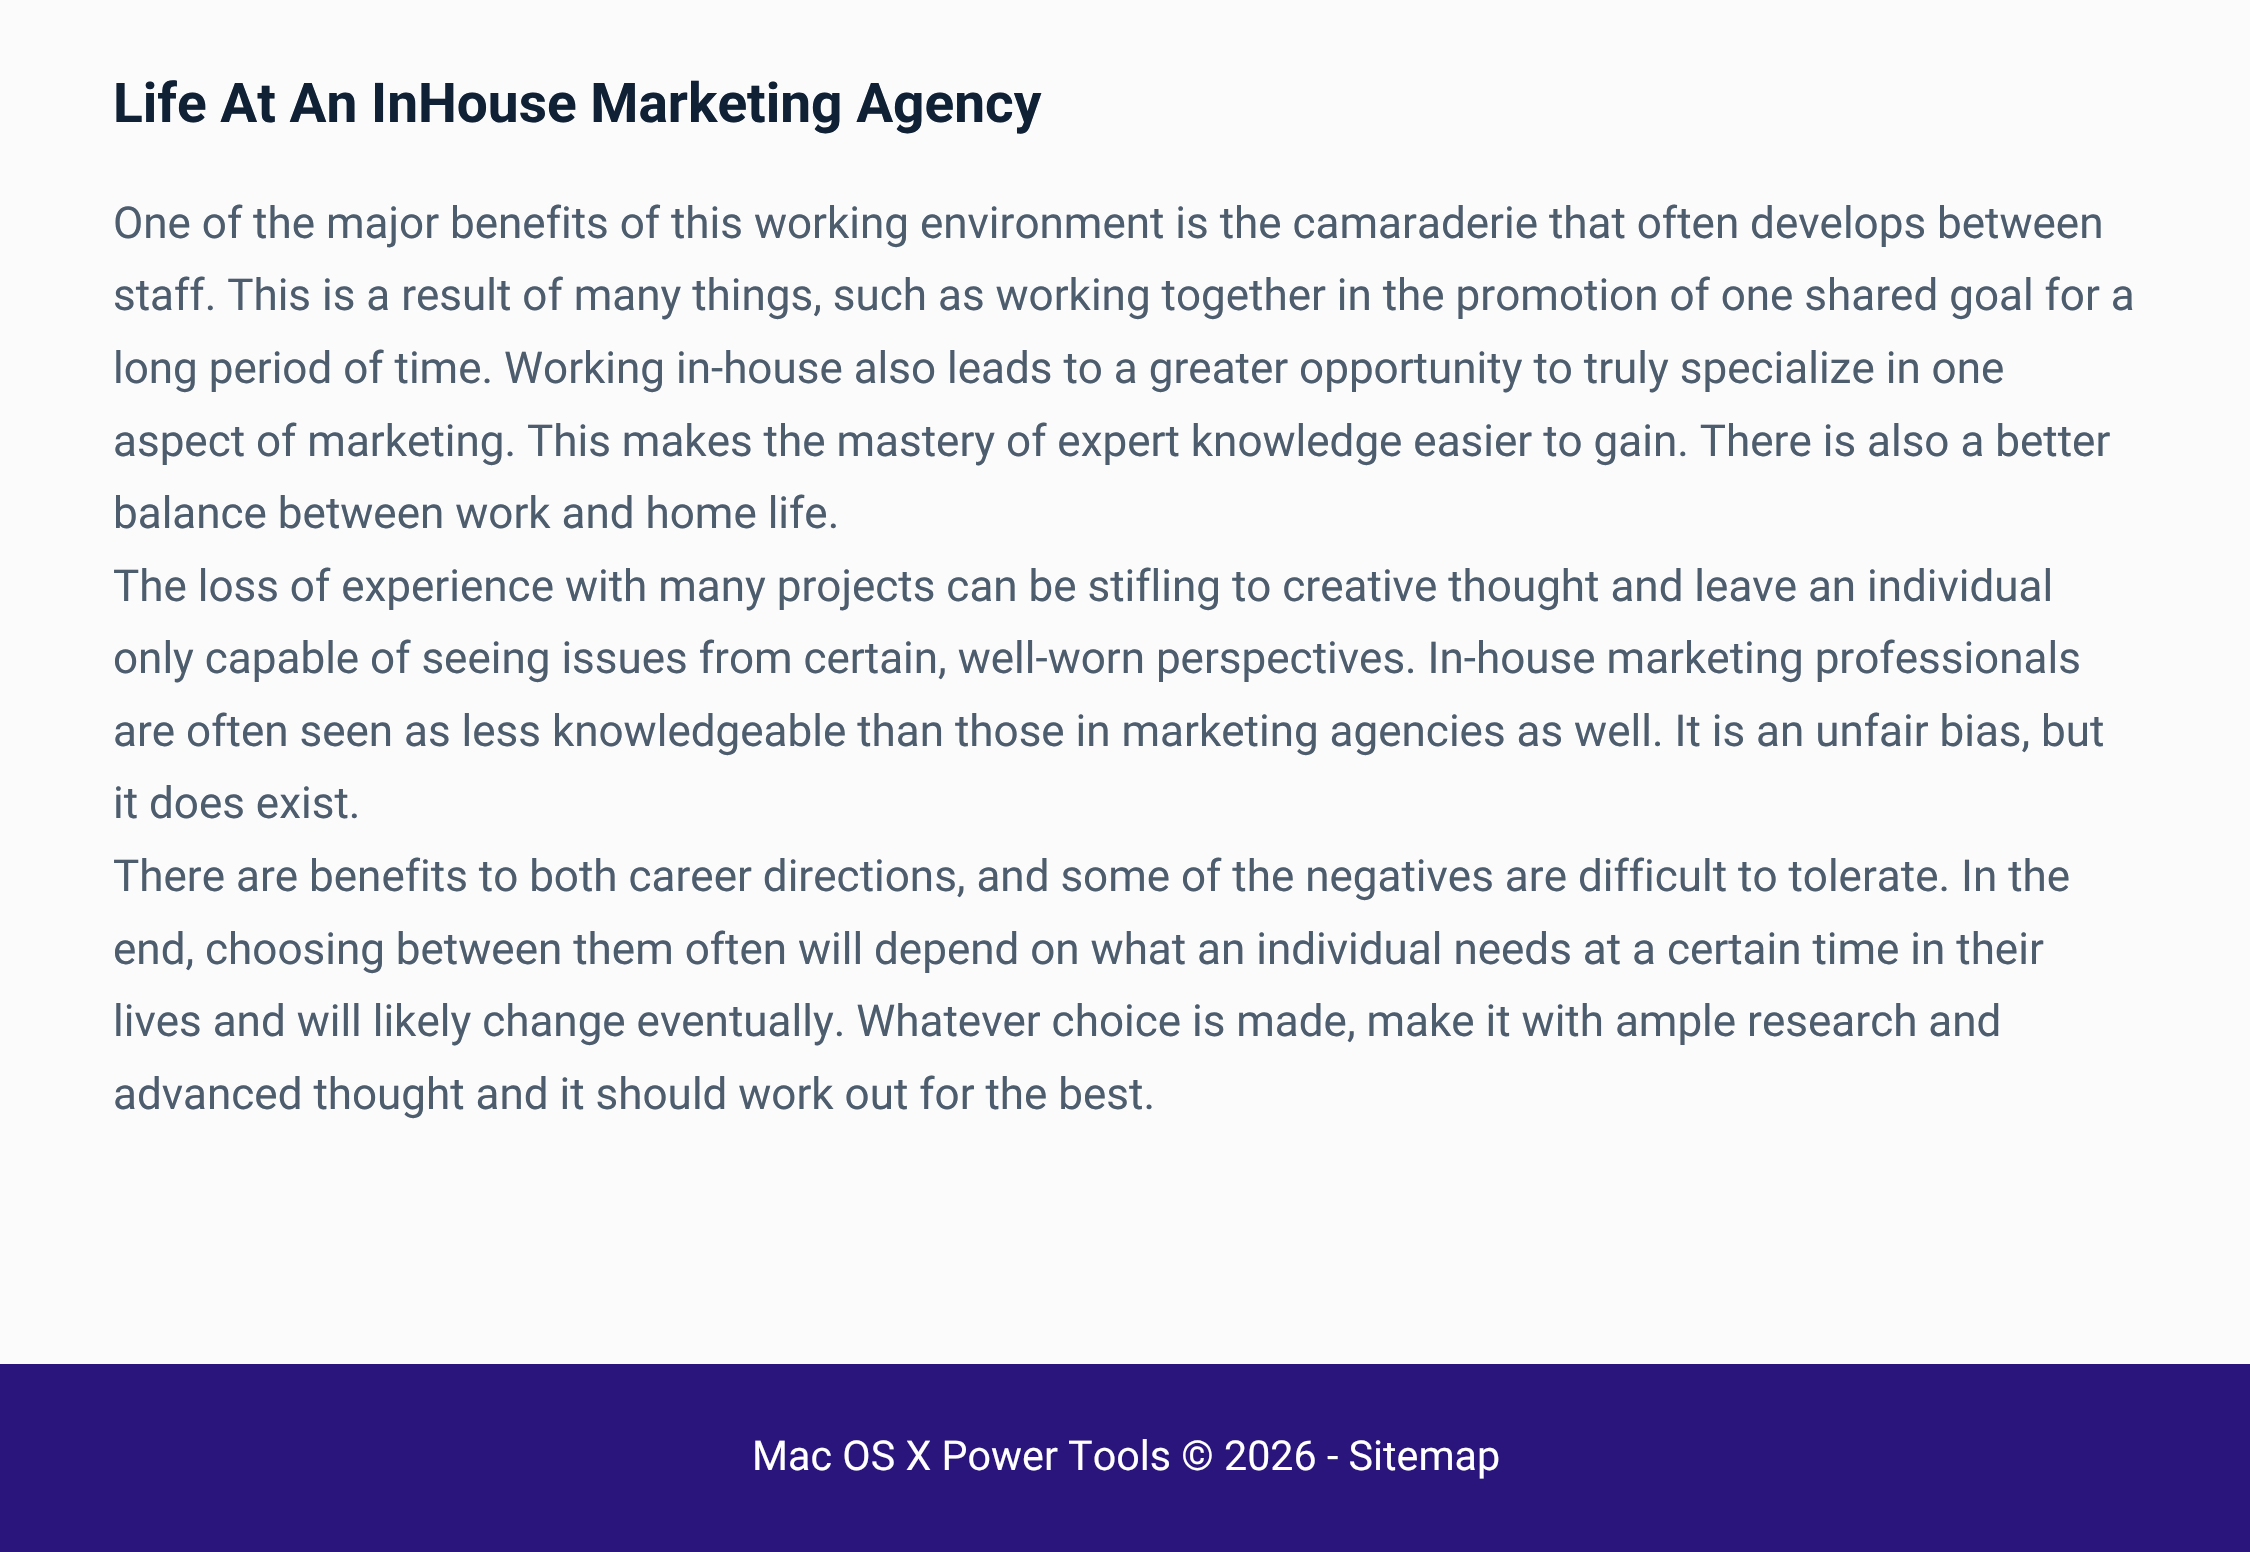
void draw(SkCanvas* canvas) {
	SkPaint fill;
	fill.setAntiAlias(true);
	auto makeFont = [&](const char* family, int weight, float size, bool italic = false) {
		SkFontStyle style(weight, SkFontStyle::kNormal_Width,
			italic ? SkFontStyle::kItalic_Slant : SkFontStyle::kUpright_Slant);
		SkFont result(fontMgr->matchFamilyStyle(family, style), size);
		result.setSubpixel(true);
		return result;
	};
	auto text = [&](const char* s, float x, float y, const SkFont& font) {
		canvas->drawString(s, x, y, font, fill);
	};
	auto box = [&](float l, float t, float r, float b) {
		canvas->drawRect(SkRect::MakeLTRB(l, t, r, b), fill);
	};
	canvas->clear(0xFFFBFBFC);
	fill.setColor(0xFF2A157C);
	box(0, 1364, 2250, 1552);
	auto font1 = makeFont("Roboto", 700, 55);
	fill.setColor(0xFF102136);
	text("Life At An InHouse Marketing Agency", 113, 122, font1);
	auto font2 = makeFont("Roboto", 400, 44);
	fill.setColor(0xFF4D5D6D);
	text("One of the major benefits of this working environment is the camaraderie that often develops between", 113, 238, font2);
	text("staff. This is a result of many things, such as working together in the promotion of one shared goal for a", 113, 310, font2);
	text("long period of time. Working in-house also leads to a greater opportunity to truly specialize in one", 113, 383, font2);
	text("aspect of marketing. This makes the mastery of expert knowledge easier to gain. There is also a better", 113, 456, font2);
	text("balance between work and home life.", 113, 528, font2);
	text("The loss of experience with many projects can be stifling to creative thought and leave an individual", 113, 601, font2);
	text("only capable of seeing issues from certain, well-worn perspectives. In-house marketing professionals", 113, 673, font2);
	text("are often seen as less knowledgeable than those in marketing agencies as well. It is an unfair bias, but", 113, 746, font2);
	text("it does exist.", 113, 818, font2);
	text("There are benefits to both career directions, and some of the negatives are difficult to tolerate. In the", 113, 891, font2);
	text("end, choosing between them often will depend on what an individual needs at a certain time in their", 113, 964, font2);
	text("lives and will likely change eventually. Whatever choice is made, make it with ample research and", 113, 1036, font2);
	text("advanced thought and it should work out for the best.", 113, 1109, font2);
	auto font3 = makeFont("Roboto", 400, 41.25f);
	fill.setColor(0xFFFFFFFF);
	text("Mac OS X Power Tools © 2026 - Sitemap", 752, 1470, font3);
}
